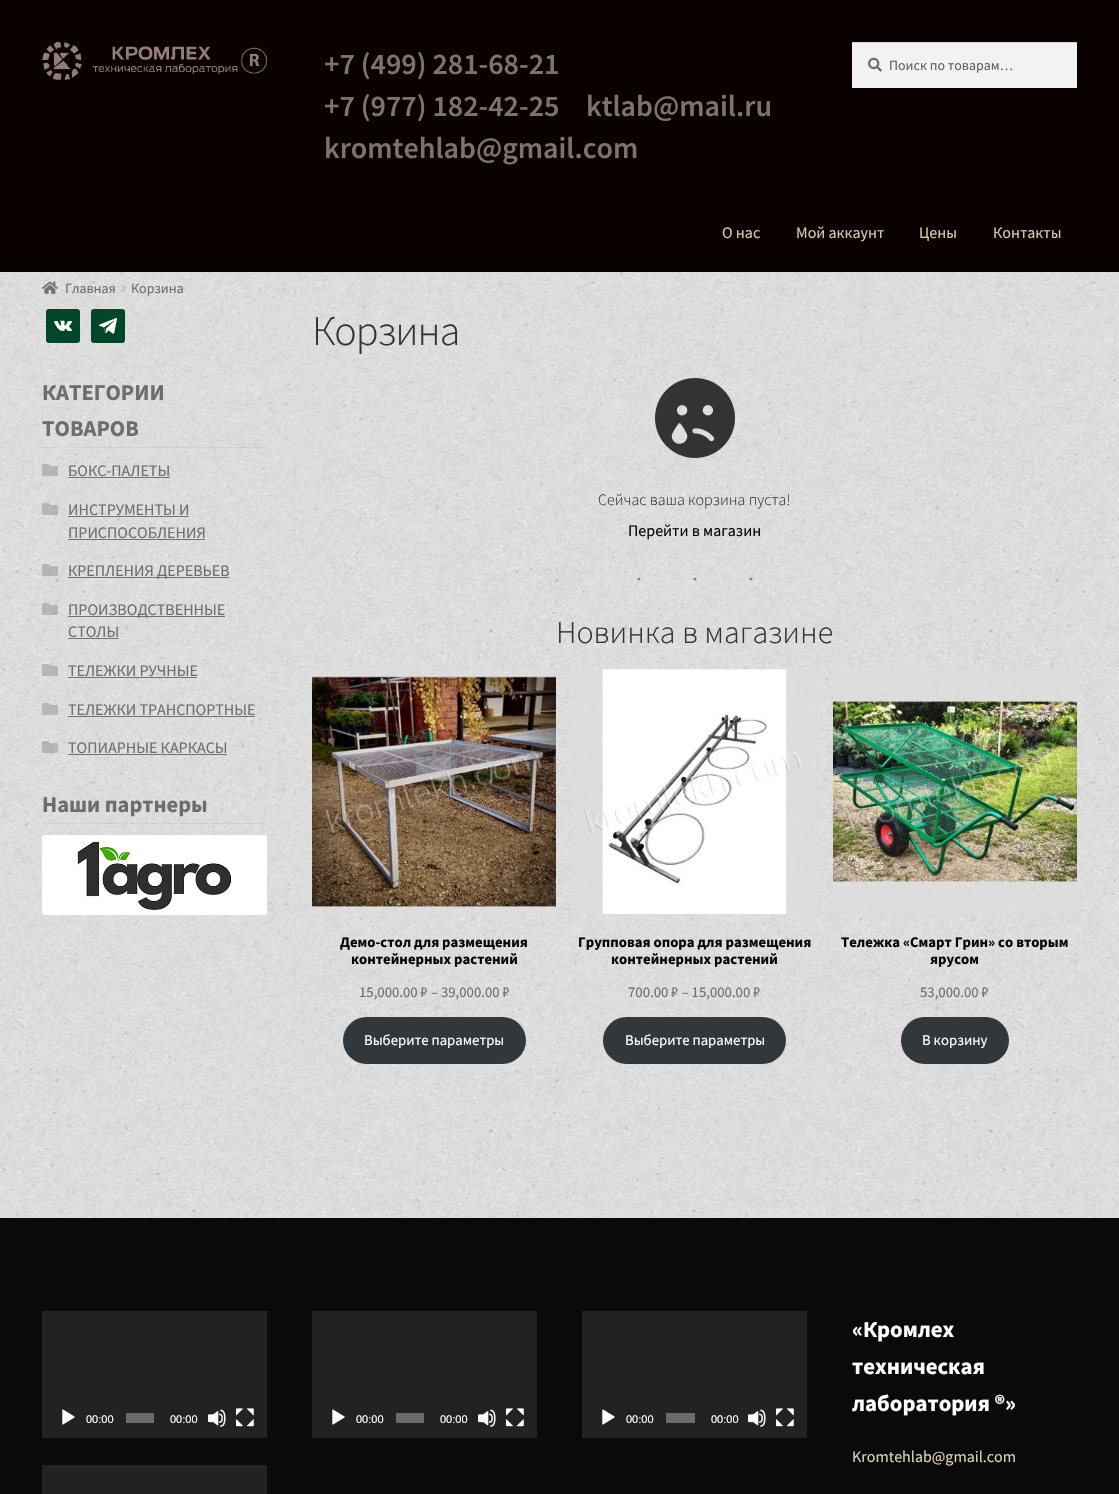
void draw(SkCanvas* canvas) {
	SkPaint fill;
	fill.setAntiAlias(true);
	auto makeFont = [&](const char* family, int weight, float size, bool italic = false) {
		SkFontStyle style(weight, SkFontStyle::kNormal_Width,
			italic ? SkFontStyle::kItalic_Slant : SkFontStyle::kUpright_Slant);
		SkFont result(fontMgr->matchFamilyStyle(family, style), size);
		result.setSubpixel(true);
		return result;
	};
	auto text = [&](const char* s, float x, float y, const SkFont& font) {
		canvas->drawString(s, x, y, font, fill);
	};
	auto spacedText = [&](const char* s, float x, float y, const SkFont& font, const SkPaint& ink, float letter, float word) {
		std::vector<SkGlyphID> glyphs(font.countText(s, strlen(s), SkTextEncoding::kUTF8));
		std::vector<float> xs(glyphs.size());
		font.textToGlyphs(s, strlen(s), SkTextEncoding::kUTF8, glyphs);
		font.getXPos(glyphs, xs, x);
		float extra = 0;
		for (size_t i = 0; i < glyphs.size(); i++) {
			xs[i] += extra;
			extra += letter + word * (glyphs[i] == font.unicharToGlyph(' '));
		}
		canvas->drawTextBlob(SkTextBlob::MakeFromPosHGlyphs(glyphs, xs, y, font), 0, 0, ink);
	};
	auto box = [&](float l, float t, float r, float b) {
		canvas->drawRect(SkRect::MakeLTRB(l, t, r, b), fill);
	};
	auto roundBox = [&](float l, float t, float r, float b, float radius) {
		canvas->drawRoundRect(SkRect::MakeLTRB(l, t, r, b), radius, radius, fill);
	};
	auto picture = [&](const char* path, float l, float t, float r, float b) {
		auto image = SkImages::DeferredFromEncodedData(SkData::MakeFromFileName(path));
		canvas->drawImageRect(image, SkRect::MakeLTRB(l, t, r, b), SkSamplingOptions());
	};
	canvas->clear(0xFFFFFFFF);
	picture("image0.png", 0, 272, 1119, 1218);
	fill.setColor(0xFF0A0101);
	box(0, 0, 1119, 271);
	fill.setColor(0xFF000000);
	box(0, 271, 1119, 272);
	picture("image1.png", 42, 42, 267, 80);
	fill.setColor(0xFFF2F2F2);
	box(852, 43, 1077, 88);
	picture("image2.png", 868, 57, 882, 72);
	fill.setColor(0xFFD4D4D4);
	box(852, 42, 1077, 43);
	picture("image3.png", 42, 281, 58, 294);
	picture("image4.png", 121, 284, 127, 292);
	fill.setColor(0xFF004729);
	roundBox(46, 309, 80, 343, 3);
	picture("image5.png", 54, 320, 72, 331);
	roundBox(91, 309, 125, 343, 3);
	picture("image6.png", 99, 318, 117, 334);
	fill.setColor(0x0D000000);
	box(42, 447, 267, 448);
	picture("image7.png", 42, 464, 58, 476);
	fill.setColor(0xFF727272);
	box(68, 477, 170, 478);
	picture("image8.png", 42, 503, 58, 515);
	box(68, 516, 189, 517);
	box(68, 539, 205, 540);
	picture("image9.png", 42, 564, 58, 576);
	box(68, 577, 229, 578);
	picture("image10.png", 42, 603, 58, 615);
	box(68, 616, 225, 617);
	box(68, 638, 119, 639);
	picture("image11.png", 42, 664, 58, 676);
	box(68, 677, 197, 678);
	picture("image12.png", 42, 703, 58, 715);
	box(68, 716, 255, 717);
	picture("image13.png", 42, 741, 58, 753);
	box(68, 754, 227, 755);
	fill.setColor(0x0D000000);
	box(42, 823, 267, 824);
	picture("image14.png", 42, 835, 267, 915);
	picture("image15.png", 655, 378, 735, 458);
	picture("image16.png", 312, 669, 556, 914);
	fill.setColor(0xFF32373C);
	roundBox(343, 1017, 526, 1064, 23.5f);
	picture("image17.png", 572, 669, 817, 914);
	roundBox(603, 1017, 786, 1064, 23.5f);
	picture("image18.png", 833, 669, 1077, 914);
	roundBox(901, 1017, 1009, 1064, 23.5f);
	fill.setColor(0xFF0A0A0A);
	box(0, 1218, 1119, 1494);
	fill.setColor(0xFF222222);
	box(42, 1311, 267, 1438);
	picture("image19.png", 62, 1409, 75, 1425);
	fill.setColor(0xFF6B6B6B);
	box(126, 1413, 154, 1423);
	picture("image20.png", 208, 1409, 226, 1427);
	picture("image21.png", 236, 1408, 254, 1427);
	fill.setColor(0xFF222222);
	box(42, 1465, 267, 1494);
	box(312, 1311, 537, 1438);
	picture("image19.png", 332, 1409, 345, 1425);
	fill.setColor(0xFF6B6B6B);
	box(396, 1413, 424, 1423);
	picture("image20.png", 478, 1409, 496, 1427);
	picture("image21.png", 506, 1408, 524, 1427);
	fill.setColor(0xFF222222);
	box(582, 1311, 807, 1438);
	picture("image19.png", 602, 1409, 615, 1425);
	fill.setColor(0xFF6B6B6B);
	box(666, 1413, 695, 1423);
	picture("image20.png", 748, 1409, 766, 1427);
	picture("image21.png", 776, 1408, 794, 1427);
	auto font1 = makeFont("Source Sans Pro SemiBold", 600, 30);
	fill.setColor(0xFF80716B);
	text("+7 (499) 281-68-21", 324, 74, font1);
	text("+7 (977) 182-42-25", 324, 116, font1);
	text("ktlab@mail.ru", 586, 116, font1);
	text("kromtehlab@gmail.com", 324, 158, font1);
	auto font2 = makeFont("Source Sans Pro", 400, 14);
	fill.setColor(0xFF616161);
	text("Поиск по товарам…", 889, 70, font2);
	auto font3 = makeFont("Source Sans Pro", 400, 16);
	fill.setColor(0xFFDDC7A6);
	text("О нас", 722, 238, font3);
	text("Мой аккаунт", 796, 238, font3);
	text("Цены", 919, 238, font3);
	text("Контакты", 993, 238, font3);
	fill.setColor(0xFF6D6D6D);
	text("Главная", 65, 293, font2);
	text("Корзина", 131, 293, font2);
	auto font4 = makeFont("Source Sans Pro", 700, 22.5f);
	text("КАТЕГОРИИ", 42, 400, font4);
	text("ТОВАРОВ", 42, 436, font4);
	text("БОКС-ПАЛЕТЫ", 68, 476, font3);
	text("ИНСТРУМЕНТЫ И", 68, 515, font3);
	text("ПРИСПОСОБЛЕНИЯ", 68, 538, font3);
	text("КРЕПЛЕНИЯ ДЕРЕВЬЕВ", 68, 576, font3);
	text("ПРОИЗВОДСТВЕННЫЕ", 68, 615, font3);
	text("СТОЛЫ", 68, 637, font3);
	text("ТЕЛЕЖКИ РУЧНЫЕ", 68, 676, font3);
	text("ТЕЛЕЖКИ ТРАНСПОРТНЫЕ", 68, 715, font3);
	text("ТОПИАРНЫЕ КАРКАСЫ", 68, 753, font3);
	text("Наши партнеры", 42, 812, font4);
	auto font5 = makeFont("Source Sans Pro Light", 300, 42);
	fill.setColor(0xFF333333);
	spacedText("Корзина", 312, 345, font5, fill, -1, 0);
	auto font6 = makeFont("Source Sans Pro Light", 300, 16);
	text("Сейчас ваша корзина пуста!", 598, 505, font6);
	fill.setColor(0xFF0A0505);
	text("Перейти в магазин", 628, 536, font3);
	auto font7 = makeFont("Liberation Serif", 400, 24);
	fill.setColor(0xFF808080);
	spacedText("···", 635, 587, font7, fill, 48, 0);
	auto font8 = makeFont("Source Sans Pro Light", 300, 32);
	fill.setColor(0xFF333333);
	text("Новинка в магазине", 556, 643, font8);
	auto font9 = makeFont("Source Sans Pro", 700, 14.75f);
	fill.setColor(0xFF0A0505);
	text("Демо-стол для размещения", 340, 947, font9);
	text("контейнерных растений", 351, 964, font9);
	auto font10 = makeFont("Source Sans Pro", 400, 14.75f);
	fill.setColor(0xFF6D6D6D);
	text("15,000.00 ₽ – 39,000.00 ₽", 359, 997, font10);
	fill.setColor(0xFFFFFFFF);
	text("Выберите параметры", 364, 1045, font10);
	fill.setColor(0xFF0A0505);
	text("Групповая опора для размещения", 578, 947, font9);
	text("контейнерных растений", 611, 964, font9);
	fill.setColor(0xFF6D6D6D);
	text("700.00 ₽ – 15,000.00 ₽", 628, 997, font10);
	fill.setColor(0xFFFFFFFF);
	text("Выберите параметры", 625, 1045, font10);
	fill.setColor(0xFF0A0505);
	text("Тележка «Смарт Грин» со вторым", 841, 947, font9);
	text("ярусом", 930, 964, font9);
	fill.setColor(0xFF6D6D6D);
	text("53,000.00 ₽", 920, 997, font10);
	fill.setColor(0xFFFFFFFF);
	text("В корзину", 922, 1045, font10);
	auto font11 = makeFont("Liberation Sans", 400, 11);
	text("00:00", 86, 1423, font11);
	text("00:00", 170, 1423, font11);
	text("00:00", 356, 1423, font11);
	text("00:00", 440, 1423, font11);
	text("00:00", 626, 1423, font11);
	text("00:00", 711, 1423, font11);
	auto font12 = makeFont("Source Sans Pro", 700, 22.75f);
	text("«Кромлех", 852, 1337, font12);
	text("техническая", 852, 1374, font12);
	text("лаборатория ®»", 852, 1411, font12);
	fill.setColor(0xFFDDD0B8);
	text("Kromtehlab@gmail.com", 852, 1462, font3);
}
